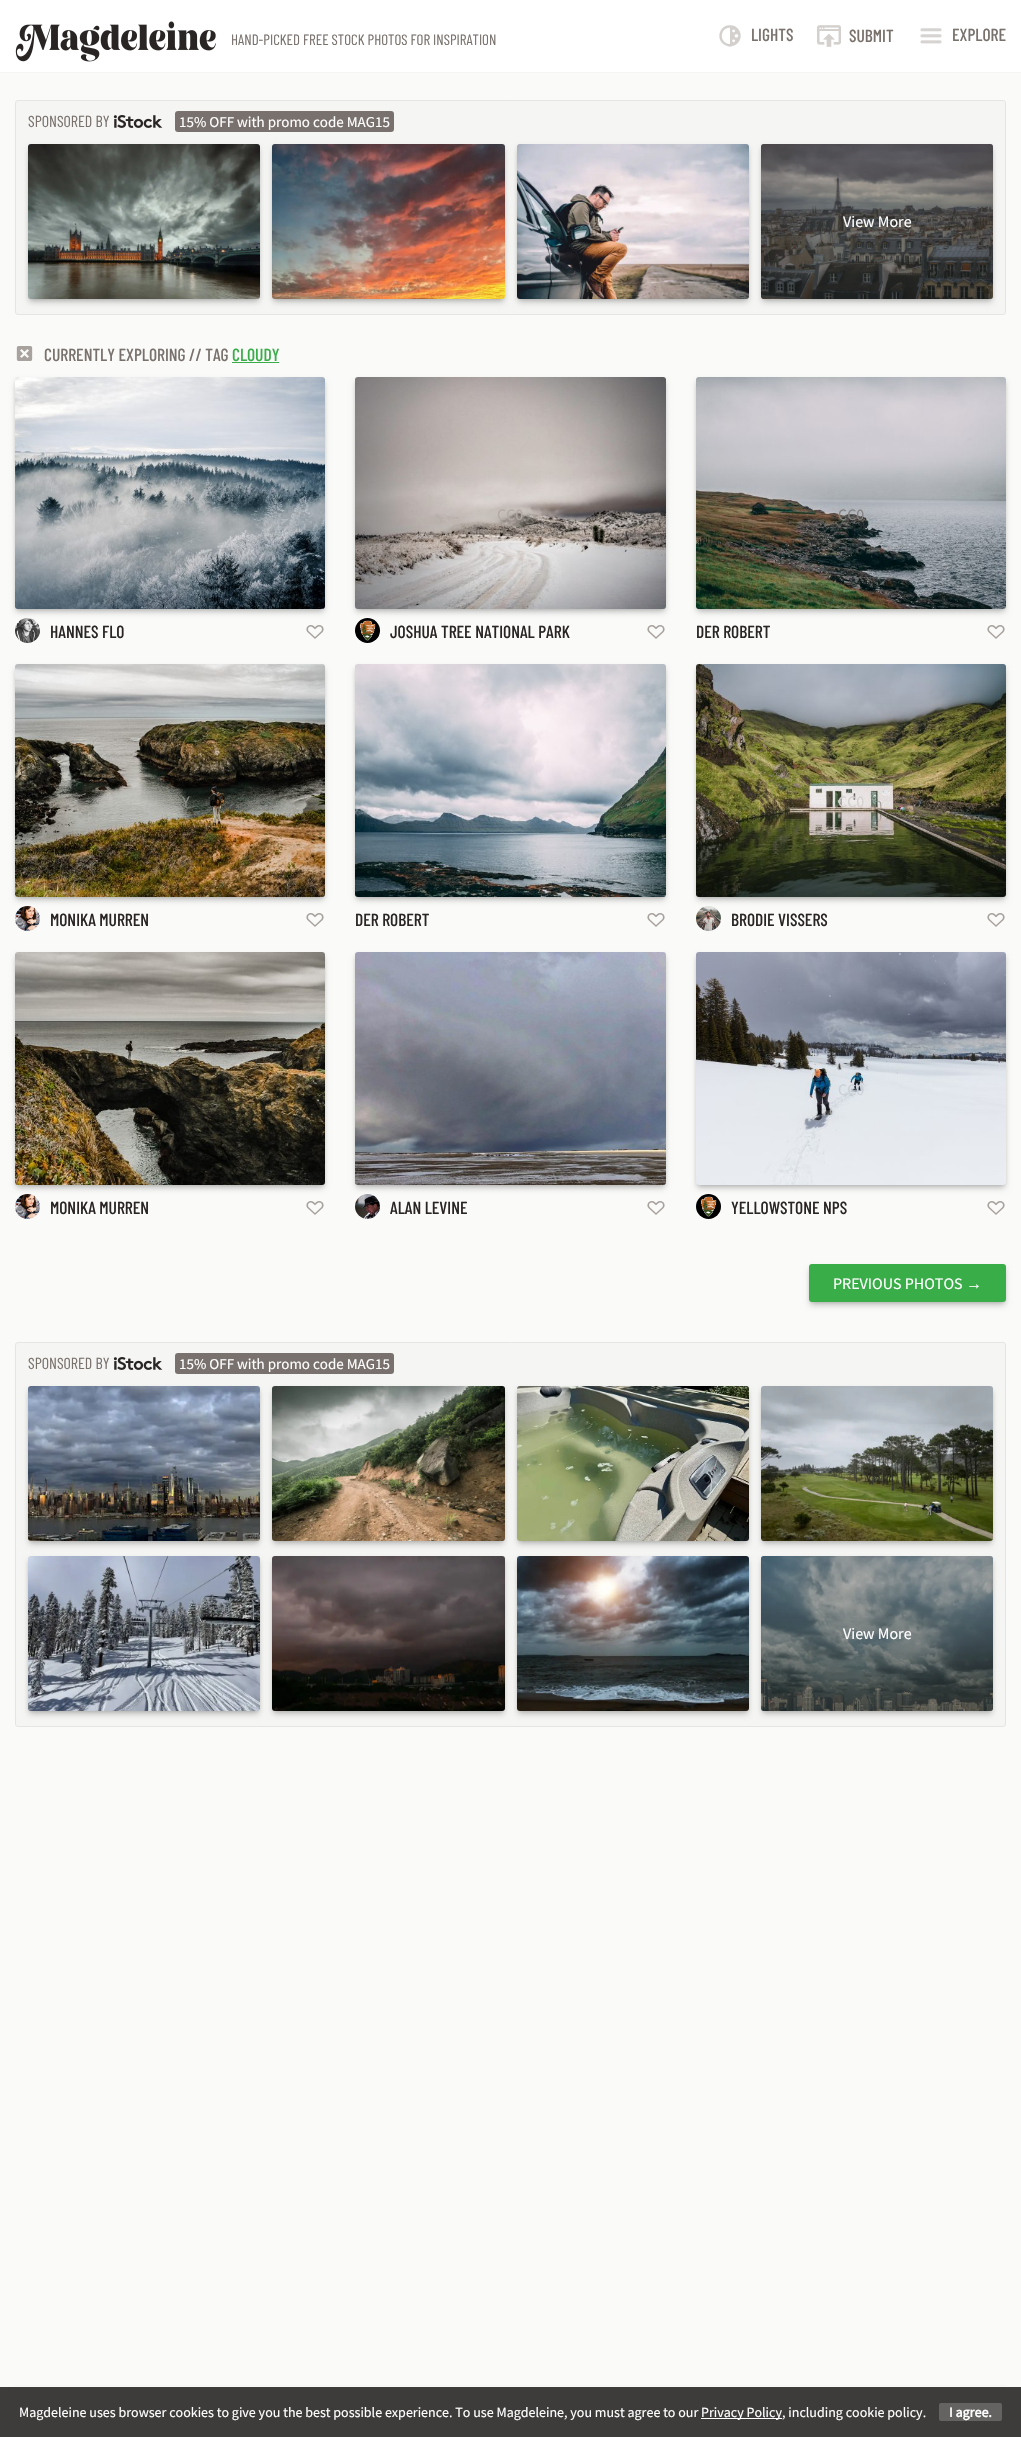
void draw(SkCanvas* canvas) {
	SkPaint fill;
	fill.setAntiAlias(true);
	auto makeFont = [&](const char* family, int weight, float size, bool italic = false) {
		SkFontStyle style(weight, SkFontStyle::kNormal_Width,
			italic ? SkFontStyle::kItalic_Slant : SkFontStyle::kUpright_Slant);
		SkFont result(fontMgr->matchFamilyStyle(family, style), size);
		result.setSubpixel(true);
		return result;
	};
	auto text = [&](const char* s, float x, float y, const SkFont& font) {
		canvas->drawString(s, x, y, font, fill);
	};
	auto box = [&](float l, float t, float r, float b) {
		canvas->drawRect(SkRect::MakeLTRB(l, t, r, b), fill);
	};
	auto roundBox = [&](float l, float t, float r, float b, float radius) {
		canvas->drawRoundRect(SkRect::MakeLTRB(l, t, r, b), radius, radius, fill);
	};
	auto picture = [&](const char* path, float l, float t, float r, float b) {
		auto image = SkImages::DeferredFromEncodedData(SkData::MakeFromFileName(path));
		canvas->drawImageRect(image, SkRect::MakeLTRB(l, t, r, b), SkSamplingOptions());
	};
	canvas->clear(0xFFFAFAF9);
	fill.setColor(0xFF3E3C3B);
	box(0, 2387, 1021, 2437);
	fill.setColor(0xFFFFFFFF);
	box(0, 0, 1021, 72);
	fill.setColor(0xFFF5F5F4);
	box(0, 72, 1021, 73);
	picture("image0.png", 15, 21, 216, 62);
	picture("image1.png", 920, 28, 942, 44);
	canvas->drawRoundRect(SkRect::MakeLTRB(15.5f, 100.5f, 1005.5f, 314.5f), 2.5f, 2.5f, fill);
	fill.setStyle(SkPaint::kStroke_Style);
	fill.setStrokeWidth(1);
	fill.setColor(0xFFE7E5E4);
	canvas->drawRoundRect(SkRect::MakeLTRB(15.5f, 100.5f, 1005.5f, 314.5f), 2.5f, 2.5f, fill);
	picture("image2.png", 113, 115, 163, 128);
	fill.setStyle(SkPaint::kFill_Style);
	fill.setColor(0xFF79716D);
	roundBox(175, 111, 394, 132, 3);
	fill.setColor(0x33000000);
	fill.setMaskFilter(SkMaskFilter::MakeBlur(kNormal_SkBlurStyle, 2));
	canvas->drawRoundRect(SkRect::MakeLTRB(30, 148, 258, 299), 1, 1, fill);
	fill.setMaskFilter(nullptr);
	fill.setMaskFilter(SkMaskFilter::MakeBlur(kNormal_SkBlurStyle, 3));
	canvas->drawRoundRect(SkRect::MakeLTRB(29, 149, 259, 302), 2, 2, fill);
	fill.setMaskFilter(nullptr);
	picture("image3.png", 28, 144, 260, 299);
	fill.setMaskFilter(SkMaskFilter::MakeBlur(kNormal_SkBlurStyle, 2));
	canvas->drawRoundRect(SkRect::MakeLTRB(274, 148, 503, 299), 1, 1, fill);
	fill.setMaskFilter(nullptr);
	fill.setMaskFilter(SkMaskFilter::MakeBlur(kNormal_SkBlurStyle, 3));
	canvas->drawRoundRect(SkRect::MakeLTRB(273, 149, 504, 302), 2, 2, fill);
	fill.setMaskFilter(nullptr);
	picture("image4.png", 272, 144, 505, 299);
	fill.setMaskFilter(SkMaskFilter::MakeBlur(kNormal_SkBlurStyle, 2));
	canvas->drawRoundRect(SkRect::MakeLTRB(519, 148, 747, 299), 1, 1, fill);
	fill.setMaskFilter(nullptr);
	fill.setMaskFilter(SkMaskFilter::MakeBlur(kNormal_SkBlurStyle, 3));
	canvas->drawRoundRect(SkRect::MakeLTRB(518, 149, 748, 302), 2, 2, fill);
	fill.setMaskFilter(nullptr);
	picture("image5.png", 517, 144, 749, 299);
	fill.setMaskFilter(SkMaskFilter::MakeBlur(kNormal_SkBlurStyle, 2));
	canvas->drawRoundRect(SkRect::MakeLTRB(763, 148, 991, 299), 1, 1, fill);
	fill.setMaskFilter(nullptr);
	fill.setMaskFilter(SkMaskFilter::MakeBlur(kNormal_SkBlurStyle, 3));
	canvas->drawRoundRect(SkRect::MakeLTRB(762, 149, 992, 302), 2, 2, fill);
	fill.setMaskFilter(nullptr);
	picture("image6.png", 761, 144, 993, 299);
	{
		const SkColor colors[] = {0x735A554E, 0x73645E55, 0x8C242B27};
		const float stops[] = {0, 0.2f, 1};
		const SkPoint ends[] = {{877, 144}, {877, 299}};
		fill.setShader(SkGradientShader::MakeLinear(ends, colors, stops, 3, SkTileMode::kClamp));
		fill.setAlpha(255);
	}
	roundBox(761, 144, 993, 299, 3);
	fill.setShader(nullptr);
	fill.setColor(0xFF39AD48);
	box(232, 362, 279, 363);
	picture("image8.png", 15, 618, 40, 643);
	fill.setColor(0x33000000);
	fill.setMaskFilter(SkMaskFilter::MakeBlur(kNormal_SkBlurStyle, 3));
	canvas->drawRoundRect(SkRect::MakeLTRB(16, 382, 324, 612), 2, 2, fill);
	fill.setMaskFilter(nullptr);
	fill.setMaskFilter(SkMaskFilter::MakeBlur(kNormal_SkBlurStyle, 2));
	canvas->drawRoundRect(SkRect::MakeLTRB(17, 381, 323, 609), 1, 1, fill);
	fill.setMaskFilter(nullptr);
	picture("image7.png", 15, 377, 325, 609);
	picture("image9.png", 306, 625, 324, 639);
	picture("image11.png", 355, 618, 380, 643);
	fill.setMaskFilter(SkMaskFilter::MakeBlur(kNormal_SkBlurStyle, 3));
	canvas->drawRoundRect(SkRect::MakeLTRB(356, 382, 665, 612), 2, 2, fill);
	fill.setMaskFilter(nullptr);
	fill.setMaskFilter(SkMaskFilter::MakeBlur(kNormal_SkBlurStyle, 2));
	canvas->drawRoundRect(SkRect::MakeLTRB(357, 381, 664, 609), 1, 1, fill);
	fill.setMaskFilter(nullptr);
	picture("image10.png", 355, 377, 666, 609);
	picture("image9.png", 647, 625, 665, 639);
	fill.setMaskFilter(SkMaskFilter::MakeBlur(kNormal_SkBlurStyle, 3));
	canvas->drawRoundRect(SkRect::MakeLTRB(697, 382, 1005, 612), 2, 2, fill);
	fill.setMaskFilter(nullptr);
	fill.setMaskFilter(SkMaskFilter::MakeBlur(kNormal_SkBlurStyle, 2));
	canvas->drawRoundRect(SkRect::MakeLTRB(698, 381, 1004, 609), 1, 1, fill);
	fill.setMaskFilter(nullptr);
	picture("image12.png", 696, 377, 1006, 609);
	picture("image9.png", 987, 625, 1005, 639);
	picture("image14.png", 15, 906, 40, 931);
	fill.setMaskFilter(SkMaskFilter::MakeBlur(kNormal_SkBlurStyle, 3));
	canvas->drawRoundRect(SkRect::MakeLTRB(16, 669, 324, 900), 2, 2, fill);
	fill.setMaskFilter(nullptr);
	fill.setMaskFilter(SkMaskFilter::MakeBlur(kNormal_SkBlurStyle, 2));
	canvas->drawRoundRect(SkRect::MakeLTRB(17, 668, 323, 897), 1, 1, fill);
	fill.setMaskFilter(nullptr);
	picture("image13.png", 15, 664, 325, 897);
	picture("image9.png", 306, 913, 324, 927);
	fill.setMaskFilter(SkMaskFilter::MakeBlur(kNormal_SkBlurStyle, 3));
	canvas->drawRoundRect(SkRect::MakeLTRB(356, 669, 665, 900), 2, 2, fill);
	fill.setMaskFilter(nullptr);
	fill.setMaskFilter(SkMaskFilter::MakeBlur(kNormal_SkBlurStyle, 2));
	canvas->drawRoundRect(SkRect::MakeLTRB(357, 668, 664, 897), 1, 1, fill);
	fill.setMaskFilter(nullptr);
	picture("image15.png", 355, 664, 666, 897);
	picture("image9.png", 647, 913, 665, 927);
	picture("image17.png", 696, 906, 721, 931);
	fill.setMaskFilter(SkMaskFilter::MakeBlur(kNormal_SkBlurStyle, 3));
	canvas->drawRoundRect(SkRect::MakeLTRB(697, 669, 1005, 900), 2, 2, fill);
	fill.setMaskFilter(nullptr);
	fill.setMaskFilter(SkMaskFilter::MakeBlur(kNormal_SkBlurStyle, 2));
	canvas->drawRoundRect(SkRect::MakeLTRB(698, 668, 1004, 897), 1, 1, fill);
	fill.setMaskFilter(nullptr);
	picture("image16.png", 696, 664, 1006, 897);
	picture("image9.png", 987, 913, 1005, 927);
	picture("image14.png", 15, 1194, 40, 1219);
	fill.setMaskFilter(SkMaskFilter::MakeBlur(kNormal_SkBlurStyle, 3));
	canvas->drawRoundRect(SkRect::MakeLTRB(16, 957, 324, 1188), 2, 2, fill);
	fill.setMaskFilter(nullptr);
	fill.setMaskFilter(SkMaskFilter::MakeBlur(kNormal_SkBlurStyle, 2));
	canvas->drawRoundRect(SkRect::MakeLTRB(17, 956, 323, 1185), 1, 1, fill);
	fill.setMaskFilter(nullptr);
	picture("image18.png", 15, 952, 325, 1185);
	picture("image9.png", 306, 1201, 324, 1215);
	picture("image20.png", 355, 1194, 380, 1219);
	fill.setMaskFilter(SkMaskFilter::MakeBlur(kNormal_SkBlurStyle, 3));
	canvas->drawRoundRect(SkRect::MakeLTRB(356, 957, 665, 1188), 2, 2, fill);
	fill.setMaskFilter(nullptr);
	fill.setMaskFilter(SkMaskFilter::MakeBlur(kNormal_SkBlurStyle, 2));
	canvas->drawRoundRect(SkRect::MakeLTRB(357, 956, 664, 1185), 1, 1, fill);
	fill.setMaskFilter(nullptr);
	picture("image19.png", 355, 952, 666, 1185);
	picture("image9.png", 647, 1201, 665, 1215);
	picture("image22.png", 696, 1194, 721, 1219);
	fill.setMaskFilter(SkMaskFilter::MakeBlur(kNormal_SkBlurStyle, 3));
	canvas->drawRoundRect(SkRect::MakeLTRB(697, 957, 1005, 1188), 2, 2, fill);
	fill.setMaskFilter(nullptr);
	fill.setMaskFilter(SkMaskFilter::MakeBlur(kNormal_SkBlurStyle, 2));
	canvas->drawRoundRect(SkRect::MakeLTRB(698, 956, 1004, 1185), 1, 1, fill);
	fill.setMaskFilter(nullptr);
	picture("image21.png", 696, 952, 1006, 1185);
	picture("image9.png", 987, 1201, 1005, 1215);
	fill.setMaskFilter(SkMaskFilter::MakeBlur(kNormal_SkBlurStyle, 2));
	canvas->drawRoundRect(SkRect::MakeLTRB(811, 1268, 1004, 1302), 1, 1, fill);
	fill.setMaskFilter(nullptr);
	fill.setMaskFilter(SkMaskFilter::MakeBlur(kNormal_SkBlurStyle, 3));
	canvas->drawRoundRect(SkRect::MakeLTRB(810, 1269, 1005, 1305), 2, 2, fill);
	fill.setMaskFilter(nullptr);
	fill.setColor(0xFF39AD48);
	roundBox(809, 1264, 1006, 1302, 3);
	fill.setColor(0xFFF5F5F4);
	canvas->drawRoundRect(SkRect::MakeLTRB(15.5f, 1342.5f, 1005.5f, 1726.5f), 2.5f, 2.5f, fill);
	fill.setStyle(SkPaint::kStroke_Style);
	fill.setColor(0xFFE7E5E4);
	canvas->drawRoundRect(SkRect::MakeLTRB(15.5f, 1342.5f, 1005.5f, 1726.5f), 2.5f, 2.5f, fill);
	picture("image2.png", 113, 1357, 163, 1370);
	fill.setStyle(SkPaint::kFill_Style);
	fill.setColor(0xFF79716D);
	roundBox(175, 1353, 394, 1374, 3);
	fill.setColor(0x33000000);
	fill.setMaskFilter(SkMaskFilter::MakeBlur(kNormal_SkBlurStyle, 2));
	canvas->drawRoundRect(SkRect::MakeLTRB(30, 1390, 258, 1541), 1, 1, fill);
	fill.setMaskFilter(nullptr);
	fill.setMaskFilter(SkMaskFilter::MakeBlur(kNormal_SkBlurStyle, 3));
	canvas->drawRoundRect(SkRect::MakeLTRB(29, 1391, 259, 1544), 2, 2, fill);
	fill.setMaskFilter(nullptr);
	picture("image23.png", 28, 1386, 260, 1541);
	fill.setMaskFilter(SkMaskFilter::MakeBlur(kNormal_SkBlurStyle, 2));
	canvas->drawRoundRect(SkRect::MakeLTRB(274, 1390, 503, 1541), 1, 1, fill);
	fill.setMaskFilter(nullptr);
	fill.setMaskFilter(SkMaskFilter::MakeBlur(kNormal_SkBlurStyle, 3));
	canvas->drawRoundRect(SkRect::MakeLTRB(273, 1391, 504, 1544), 2, 2, fill);
	fill.setMaskFilter(nullptr);
	picture("image24.png", 272, 1386, 505, 1541);
	fill.setMaskFilter(SkMaskFilter::MakeBlur(kNormal_SkBlurStyle, 2));
	canvas->drawRoundRect(SkRect::MakeLTRB(519, 1390, 747, 1541), 1, 1, fill);
	fill.setMaskFilter(nullptr);
	fill.setMaskFilter(SkMaskFilter::MakeBlur(kNormal_SkBlurStyle, 3));
	canvas->drawRoundRect(SkRect::MakeLTRB(518, 1391, 748, 1544), 2, 2, fill);
	fill.setMaskFilter(nullptr);
	picture("image25.png", 517, 1386, 749, 1541);
	fill.setMaskFilter(SkMaskFilter::MakeBlur(kNormal_SkBlurStyle, 2));
	canvas->drawRoundRect(SkRect::MakeLTRB(763, 1390, 991, 1541), 1, 1, fill);
	fill.setMaskFilter(nullptr);
	fill.setMaskFilter(SkMaskFilter::MakeBlur(kNormal_SkBlurStyle, 3));
	canvas->drawRoundRect(SkRect::MakeLTRB(762, 1391, 992, 1544), 2, 2, fill);
	fill.setMaskFilter(nullptr);
	picture("image26.png", 761, 1386, 993, 1541);
	fill.setMaskFilter(SkMaskFilter::MakeBlur(kNormal_SkBlurStyle, 2));
	canvas->drawRoundRect(SkRect::MakeLTRB(30, 1560, 258, 1711), 1, 1, fill);
	fill.setMaskFilter(nullptr);
	fill.setMaskFilter(SkMaskFilter::MakeBlur(kNormal_SkBlurStyle, 3));
	canvas->drawRoundRect(SkRect::MakeLTRB(29, 1561, 259, 1714), 2, 2, fill);
	fill.setMaskFilter(nullptr);
	picture("image27.png", 28, 1556, 260, 1711);
	fill.setMaskFilter(SkMaskFilter::MakeBlur(kNormal_SkBlurStyle, 2));
	canvas->drawRoundRect(SkRect::MakeLTRB(274, 1560, 503, 1711), 1, 1, fill);
	fill.setMaskFilter(nullptr);
	fill.setMaskFilter(SkMaskFilter::MakeBlur(kNormal_SkBlurStyle, 3));
	canvas->drawRoundRect(SkRect::MakeLTRB(273, 1561, 504, 1714), 2, 2, fill);
	fill.setMaskFilter(nullptr);
	picture("image28.png", 272, 1556, 505, 1711);
	fill.setMaskFilter(SkMaskFilter::MakeBlur(kNormal_SkBlurStyle, 2));
	canvas->drawRoundRect(SkRect::MakeLTRB(519, 1560, 747, 1711), 1, 1, fill);
	fill.setMaskFilter(nullptr);
	fill.setMaskFilter(SkMaskFilter::MakeBlur(kNormal_SkBlurStyle, 3));
	canvas->drawRoundRect(SkRect::MakeLTRB(518, 1561, 748, 1714), 2, 2, fill);
	fill.setMaskFilter(nullptr);
	picture("image29.png", 517, 1556, 749, 1711);
	fill.setMaskFilter(SkMaskFilter::MakeBlur(kNormal_SkBlurStyle, 2));
	canvas->drawRoundRect(SkRect::MakeLTRB(763, 1560, 991, 1711), 1, 1, fill);
	fill.setMaskFilter(nullptr);
	fill.setMaskFilter(SkMaskFilter::MakeBlur(kNormal_SkBlurStyle, 3));
	canvas->drawRoundRect(SkRect::MakeLTRB(762, 1561, 992, 1714), 2, 2, fill);
	fill.setMaskFilter(nullptr);
	picture("image30.png", 761, 1556, 993, 1711);
	{
		const SkColor colors[] = {0x735A554E, 0x73645E55, 0x8C242B27};
		const float stops[] = {0, 0.2f, 1};
		const SkPoint ends[] = {{877, 1556}, {877, 1711}};
		fill.setShader(SkGradientShader::MakeLinear(ends, colors, stops, 3, SkTileMode::kClamp));
		fill.setAlpha(255);
	}
	roundBox(761, 1556, 993, 1711, 3);
	fill.setShader(nullptr);
	fill.setColor(0xFFF5F5F4);
	box(15, 2385, 1006, 2386);
	fill.setColor(0xFFFFFFFF);
	box(701, 2418, 782, 2419);
	fill.setColor(0xFF656362);
	roundBox(939, 2403, 1002, 2421, 2);
	auto font1 = makeFont("Barlow Condensed", 400, 15);
	fill.setColor(0xFF78716C);
	text("HAND-PICKED FREE STOCK PHOTOS FOR INSPIRATION", 231, 45, font1);
	auto font2 = makeFont("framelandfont", 400, 26);
	fill.setColor(0xFFD4D0CD);
	text("`", 717, 48, font2);
	auto font3 = makeFont("Barlow Condensed", 500, 17.5f);
	fill.setColor(0xFF78716C);
	text("LIGHTS", 751, 41, font3);
	auto font4 = makeFont("framelandfont", 400, 24);
	fill.setColor(0xFFD4D0CD);
	text("4", 817, 48, font4);
	fill.setColor(0xFF78716C);
	text("SUBMIT", 849, 42, font3);
	text("EXPLORE", 952, 41, font3);
	auto font5 = makeFont("Barlow Condensed", 400, 16);
	text("SPONSORED BY", 28, 127, font5);
	auto font6 = makeFont("Source Sans Pro", 400, 15);
	fill.setColor(0xFFFFFFFF);
	text("15% OFF with promo code MAG15", 179, 127, font6);
	auto font7 = makeFont("Source Sans Pro", 400, 16);
	text("View More", 843, 227, font7);
	auto font8 = makeFont("framelandfont", 400, 19);
	fill.setColor(0xFFA8A29E);
	text("/", 15, 363, font8);
	fill.setColor(0xFF78716C);
	text("CURRENTLY EXPLORING // TAG", 44, 361, font3);
	fill.setColor(0xFF39AD48);
	text("CLOUDY", 232, 361, font3);
	fill.setColor(0xFF292524);
	text("HANNES FLO", 50, 638, font3);
	fill.setColor(0xFFB1A9A4);
	text("CC0", 497, 520, font7);
	fill.setColor(0xFF292524);
	text("JOSHUA TREE NATIONAL PARK", 390, 638, font3);
	fill.setColor(0xFF828282);
	text("CC0", 838, 520, font7);
	fill.setColor(0xFF292524);
	text("DER ROBERT", 696, 638, font3);
	fill.setColor(0xFF8A8C85);
	text("Y", 182, 807, font7);
	fill.setColor(0xFF292524);
	text("MONIKA MURREN", 50, 926, font3);
	text("DER ROBERT", 355, 926, font3);
	fill.setColor(0xFFD4D0CD);
	text("CC0", 838, 807, font7);
	fill.setColor(0xFF292524);
	text("BRODIE VISSERS", 731, 926, font3);
	text("MONIKA MURREN", 50, 1214, font3);
	text("ALAN LEVINE", 390, 1214, font3);
	fill.setColor(0xFFCCD1D8);
	text("CC0", 838, 1095, font7);
	fill.setColor(0xFF292524);
	text("YELLOWSTONE NPS", 731, 1214, font3);
	fill.setColor(0xFFFFFFFF);
	text("PREVIOUS PHOTOS", 833, 1289, font7);
	auto font9 = makeFont("Liberation Sans", 400, 16);
	text("→", 966, 1289, font9);
	fill.setColor(0xFF78716C);
	text("SPONSORED BY", 28, 1369, font5);
	fill.setColor(0xFFFFFFFF);
	text("15% OFF with promo code MAG15", 179, 1369, font6);
	text("View More", 843, 1639, font7);
	auto font10 = makeFont("Source Sans Pro", 400, 14);
	text("Magdeleine uses browser cookies to give you the best possible experience. To use Magdeleine, you must agree to our", 19, 2417, font10);
	text("Privacy Policy, including cookie policy.", 701, 2417, font10);
	auto font11 = makeFont("Source Sans Pro", 700, 14);
	text("I agree.", 949, 2417, font11);
}
